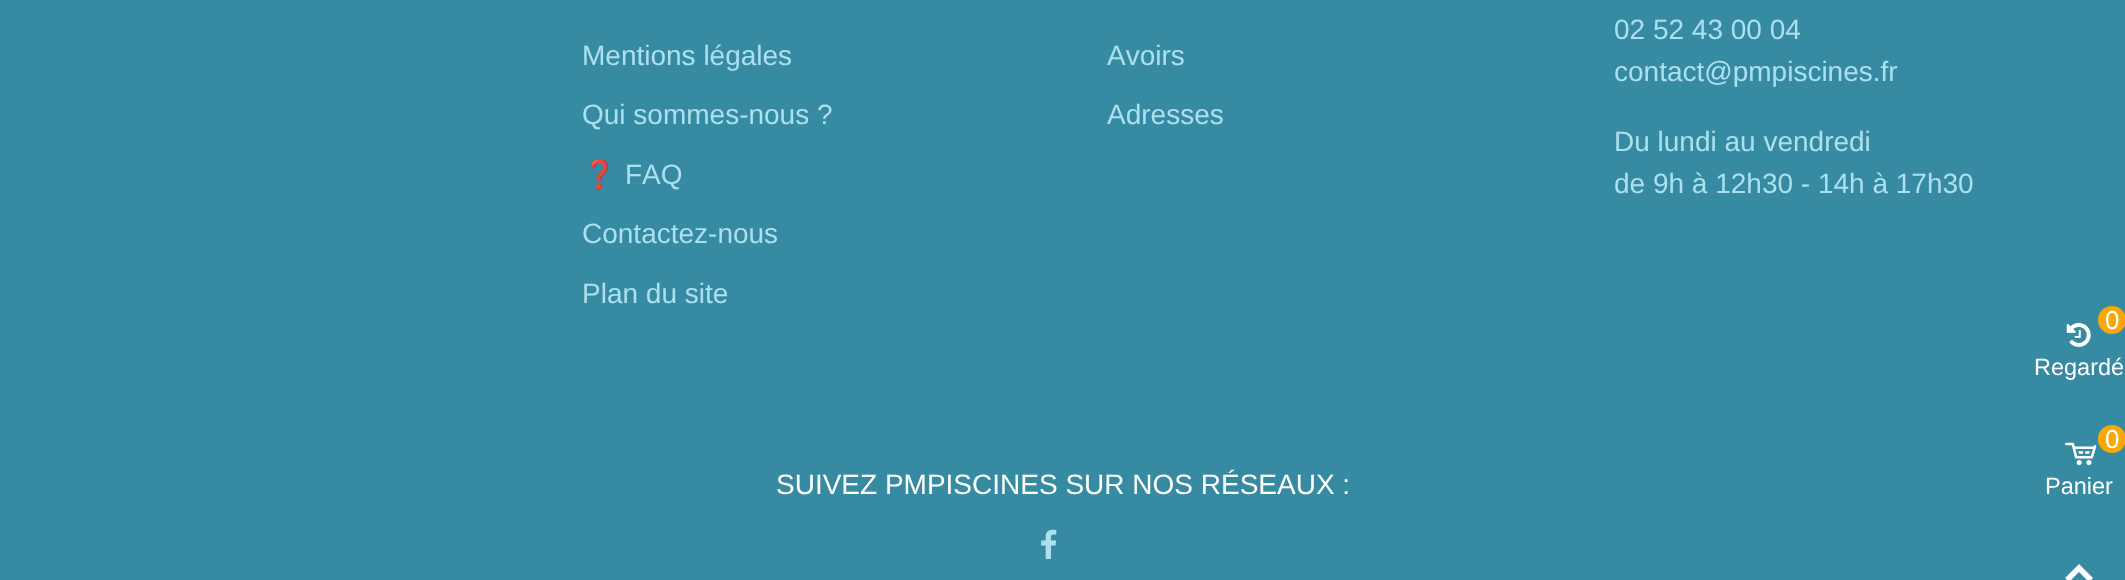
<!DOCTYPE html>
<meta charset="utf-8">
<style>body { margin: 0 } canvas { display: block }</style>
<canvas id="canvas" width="2125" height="580"></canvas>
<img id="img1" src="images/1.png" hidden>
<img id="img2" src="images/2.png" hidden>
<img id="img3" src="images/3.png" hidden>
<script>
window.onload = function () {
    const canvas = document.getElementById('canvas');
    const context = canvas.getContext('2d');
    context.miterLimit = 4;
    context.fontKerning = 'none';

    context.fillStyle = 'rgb(54, 138, 162)';
    context.fillRect(0, 0, 2125, 580);
    context.drawImage(document.getElementById('img1'), 1041, 529, 16, 30);
    context.drawImage(document.getElementById('img2'), 2066, 322, 25, 25);
    context.fillStyle = 'rgb(247, 168, 6)';
    context.beginPath();
    context.arc(2112, 320, 14, 0, 2 * Math.PI);
    context.fill();
    context.beginPath();
    context.arc(2112, 439, 14, 0, 2 * Math.PI);
    context.fill();
    context.drawImage(document.getElementById('img3'), 2065, 442, 32, 24);
    context.fillStyle = 'rgb(255, 255, 255)';
    context.beginPath();
    context.moveTo(2065, 578);
    context.lineTo(2079, 564);
    context.lineTo(2093, 578);
    context.lineTo(2089, 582);
    context.lineTo(2079, 572);
    context.lineTo(2069, 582);
    context.closePath();
    context.fill();
    context.font = '28px Liberation Sans';
    context.fillStyle = 'rgb(171, 224, 238)';
    context.fillText('Mentions légales', 582, 65);
    context.fillText('Qui sommes-nous ?', 582, 124);
    context.font = '28px Noto Color Emoji';
    context.fillText('❓', 582, 184);
    context.font = '28px Liberation Sans';
    context.fillText('FAQ', 625, 184);
    context.fillText('Contactez-nous', 582, 243);
    context.fillText('Plan du site', 582, 303);
    context.fillText('Avoirs', 1107, 65);
    context.fillText('Adresses', 1107, 124);
    context.fillText('02 52 43 00 04', 1614, 39);
    context.fillText('contact@pmpiscines.fr', 1614, 81);
    context.fillText('Du lundi au vendredi', 1614, 151);
    context.fillText('de 9h à 12h30 - 14h à 17h30', 1614, 193);
    context.fillStyle = 'rgb(255, 255, 255)';
    context.fillText('SUIVEZ PMPISCINES SUR NOS RÉSEAUX :', 776, 494);
    context.font = '26px Liberation Sans';
    context.fillText('0', 2105, 329);
    context.font = '23.5px Liberation Sans';
    context.fillText('Regardé', 2034, 375);
    context.font = '26px Liberation Sans';
    context.fillText('0', 2105, 448);
    context.font = '23.5px Liberation Sans';
    context.fillText('Panier', 2045, 494);
};
</script>
